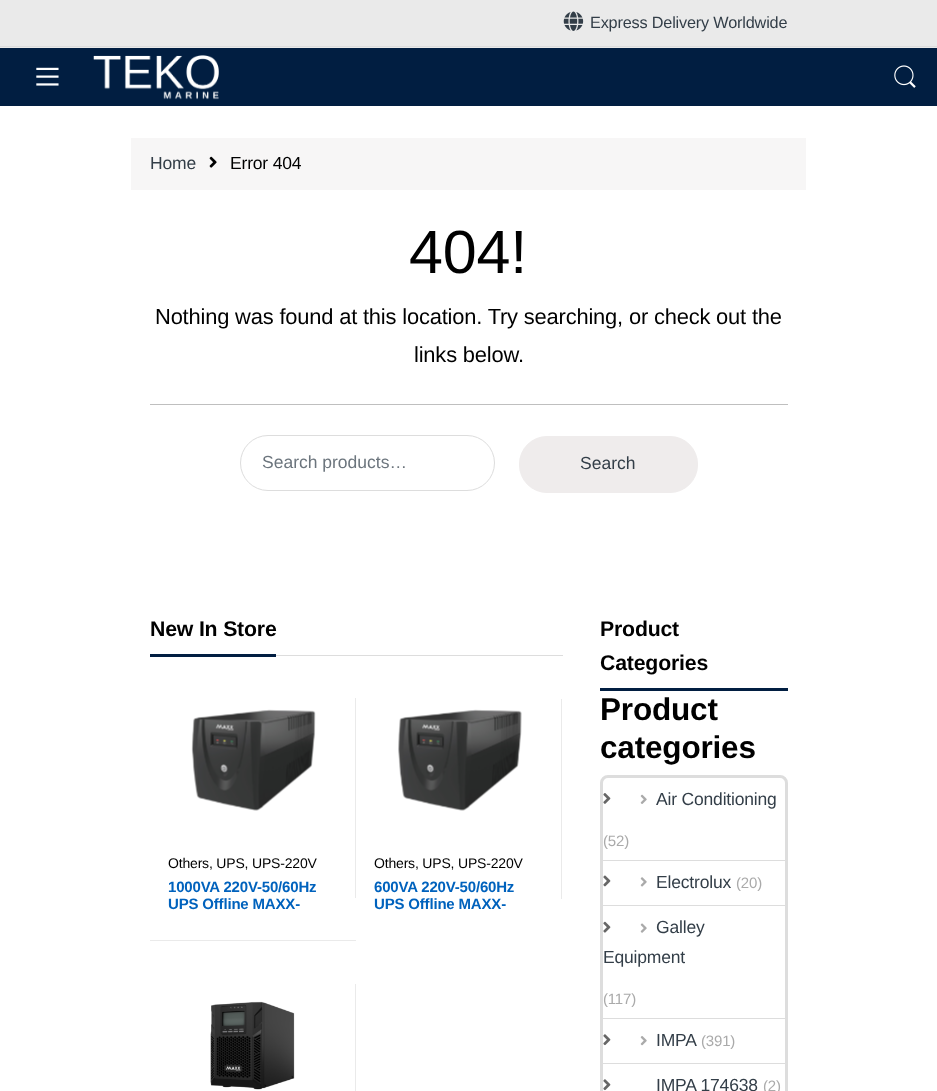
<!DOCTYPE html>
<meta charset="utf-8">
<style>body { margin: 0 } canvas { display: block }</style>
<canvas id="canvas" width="937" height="1091"></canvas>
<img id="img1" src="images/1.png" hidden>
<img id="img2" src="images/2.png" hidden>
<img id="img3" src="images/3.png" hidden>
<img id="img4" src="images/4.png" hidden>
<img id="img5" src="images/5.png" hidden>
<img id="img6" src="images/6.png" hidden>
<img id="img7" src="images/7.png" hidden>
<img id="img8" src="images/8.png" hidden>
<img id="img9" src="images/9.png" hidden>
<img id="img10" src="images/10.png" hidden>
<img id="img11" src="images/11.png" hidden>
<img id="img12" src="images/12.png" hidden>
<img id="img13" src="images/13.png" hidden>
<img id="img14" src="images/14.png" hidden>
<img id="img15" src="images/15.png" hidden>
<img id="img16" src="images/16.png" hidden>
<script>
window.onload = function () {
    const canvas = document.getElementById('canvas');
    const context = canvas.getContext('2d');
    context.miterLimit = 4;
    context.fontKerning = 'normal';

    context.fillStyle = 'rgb(255, 255, 255)';
    context.fillRect(0, 0, 937, 1091);
    context.fillStyle = 'rgb(234, 234, 234)';
    context.fillRect(0, 0, 937, 48);
    context.fillStyle = 'rgb(221, 221, 221)';
    context.fillRect(0, 46, 937, 1);
    context.drawImage(document.getElementById('img1'), 563, 11, 21, 20);
    context.fillStyle = 'rgb(1, 30, 65)';
    context.fillRect(0, 48, 937, 58);
    context.drawImage(document.getElementById('img2'), 36, 67, 23, 19);
    context.drawImage(document.getElementById('img3'), 93, 55, 126, 45);
    context.drawImage(document.getElementById('img4'), 894, 65, 22, 23);
    context.fillStyle = 'rgb(247, 246, 246)';
    context.fillRect(131, 138, 675, 52);
    context.drawImage(document.getElementById('img5'), 209, 156, 8, 12);
    context.fillStyle = 'rgb(191, 191, 191)';
    context.fillRect(150, 404, 638, 1);
    context.beginPath();
    context.roundRect(240.5, 435.5, 254, 55, 27.5);
    context.strokeStyle = 'rgb(221, 221, 221)';
    context.stroke();
    context.fillStyle = 'rgb(239, 236, 236)';
    context.beginPath();
    context.roundRect(519.5, 436.5, 178, 56, 27.5);
    context.fill();
    context.strokeStyle = 'rgb(239, 236, 236)';
    context.stroke();
    context.fillStyle = 'rgb(221, 221, 221)';
    context.fillRect(276, 655, 287, 1);
    context.fillStyle = 'rgb(1, 30, 65)';
    context.fillRect(150, 654, 126, 3);
    context.fillStyle = 'rgb(234, 234, 234)';
    context.fillRect(150, 940, 206, 1);
    context.drawImage(document.getElementById('img6'), 191, 709, 125, 102);
    context.fillRect(355, 698, 1, 200);
    context.drawImage(document.getElementById('img7'), 398, 709, 124, 102);
    context.fillRect(561, 699, 1, 200);
    context.drawImage(document.getElementById('img8'), 210, 1001, 85, 89);
    context.fillRect(355, 984, 1, 107);
    context.fillStyle = 'rgb(1, 30, 65)';
    context.fillRect(600, 688, 188, 3);
    context.beginPath();
    context.roundRect(601.5, 776.5, 185, 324, 6.5);
    context.strokeStyle = 'rgb(221, 221, 221)';
    context.lineWidth = 3;
    context.stroke();
    context.drawImage(document.getElementById('img9'), 603, 793, 8, 11);
    context.drawImage(document.getElementById('img10'), 640, 794, 7, 10);
    context.fillStyle = 'rgb(221, 221, 221)';
    context.fillRect(603, 860, 182, 1);
    context.drawImage(document.getElementById('img11'), 603, 875, 8, 12);
    context.drawImage(document.getElementById('img12'), 640, 877, 7, 10);
    context.fillRect(603, 905, 182, 1);
    context.drawImage(document.getElementById('img13'), 603, 921, 8, 12);
    context.drawImage(document.getElementById('img14'), 640, 923, 7, 10);
    context.fillRect(603, 1018, 182, 1);
    context.drawImage(document.getElementById('img15'), 603, 1034, 8, 12);
    context.drawImage(document.getElementById('img16'), 640, 1036, 7, 10);
    context.fillRect(603, 1063, 182, 1);
    context.drawImage(document.getElementById('img15'), 603, 1079, 8, 12);
    context.letterSpacing = '-0.18px';
    context.font = '16.25px Liberation Sans';
    context.fillStyle = 'rgb(51, 62, 72)';
    context.fillText('Express Delivery Worldwide', 590, 28);
    context.font = '17.5px Liberation Sans';
    context.fillText('Home', 150, 169);
    context.fillStyle = 'rgb(0, 0, 0)';
    context.fillText('Error 404', 230, 169);
    context.font = '61px Liberation Sans';
    context.fillText('404!', 409, 273);
    context.font = '21.9px Liberation Sans';
    context.fillText('Nothing was found at this location. Try searching, or check out the', 155, 324);
    context.fillText('links below.', 414, 362);
    context.letterSpacing = '0px';
    context.font = '17.5px Liberation Sans';
    context.fillStyle = 'rgb(108, 117, 125)';
    context.fillText('Search products…', 262, 468);
    context.fillStyle = 'rgb(51, 62, 72)';
    context.fillText('Search', 580, 469);
    context.letterSpacing = '-0.18px';
    context.font = 'bold 21.25px Liberation Sans';
    context.fillStyle = 'rgb(0, 0, 0)';
    context.fillText('New In Store', 150, 636);
    context.font = '14px Liberation Sans';
    context.fillText('Others, UPS, UPS-220V', 168, 868);
    context.font = 'bold 15px Liberation Sans';
    context.fillStyle = 'rgb(0, 98, 189)';
    context.fillText('1000VA 220V-50/60Hz', 168, 892);
    context.fillText('UPS Offline MAXX-', 168, 909);
    context.font = '14px Liberation Sans';
    context.fillStyle = 'rgb(0, 0, 0)';
    context.fillText('Others, UPS, UPS-220V', 374, 868);
    context.font = 'bold 15px Liberation Sans';
    context.fillStyle = 'rgb(0, 98, 189)';
    context.fillText('600VA 220V-50/60Hz', 374, 892);
    context.fillText('UPS Offline MAXX-', 374, 909);
    context.font = 'bold 21.25px Liberation Sans';
    context.fillStyle = 'rgb(0, 0, 0)';
    context.fillText('Product', 600, 636);
    context.fillText('Categories', 600, 670);
    context.font = 'bold 31.5px Liberation Sans';
    context.fillText('Product', 600, 720);
    context.fillText('categories', 600, 758);
    context.font = '17.5px Liberation Sans';
    context.fillStyle = 'rgb(51, 62, 72)';
    context.fillText('Air Conditioning', 656, 805);
    context.font = '15px Liberation Sans';
    context.fillStyle = 'rgb(170, 170, 170)';
    context.fillText('(52)', 603, 846);
    context.font = '17.5px Liberation Sans';
    context.fillStyle = 'rgb(51, 62, 72)';
    context.fillText('Electrolux', 656, 888);
    context.font = '15px Liberation Sans';
    context.fillStyle = 'rgb(170, 170, 170)';
    context.fillText('(20)', 736, 888);
    context.font = '17.5px Liberation Sans';
    context.fillStyle = 'rgb(51, 62, 72)';
    context.fillText('Galley', 656, 933);
    context.fillText('Equipment', 603, 963);
    context.font = '15px Liberation Sans';
    context.fillStyle = 'rgb(170, 170, 170)';
    context.fillText('(117)', 603, 1004);
    context.font = '17.5px Liberation Sans';
    context.fillStyle = 'rgb(51, 62, 72)';
    context.fillText('IMPA', 656, 1046);
    context.font = '15px Liberation Sans';
    context.fillStyle = 'rgb(170, 170, 170)';
    context.fillText('(391)', 701, 1046);
    context.font = '17.5px Liberation Sans';
    context.fillStyle = 'rgb(51, 62, 72)';
    context.fillText('IMPA 174638', 656, 1091);
    context.font = '15px Liberation Sans';
    context.fillStyle = 'rgb(170, 170, 170)';
    context.fillText('(2)', 763, 1091);
};
</script>
